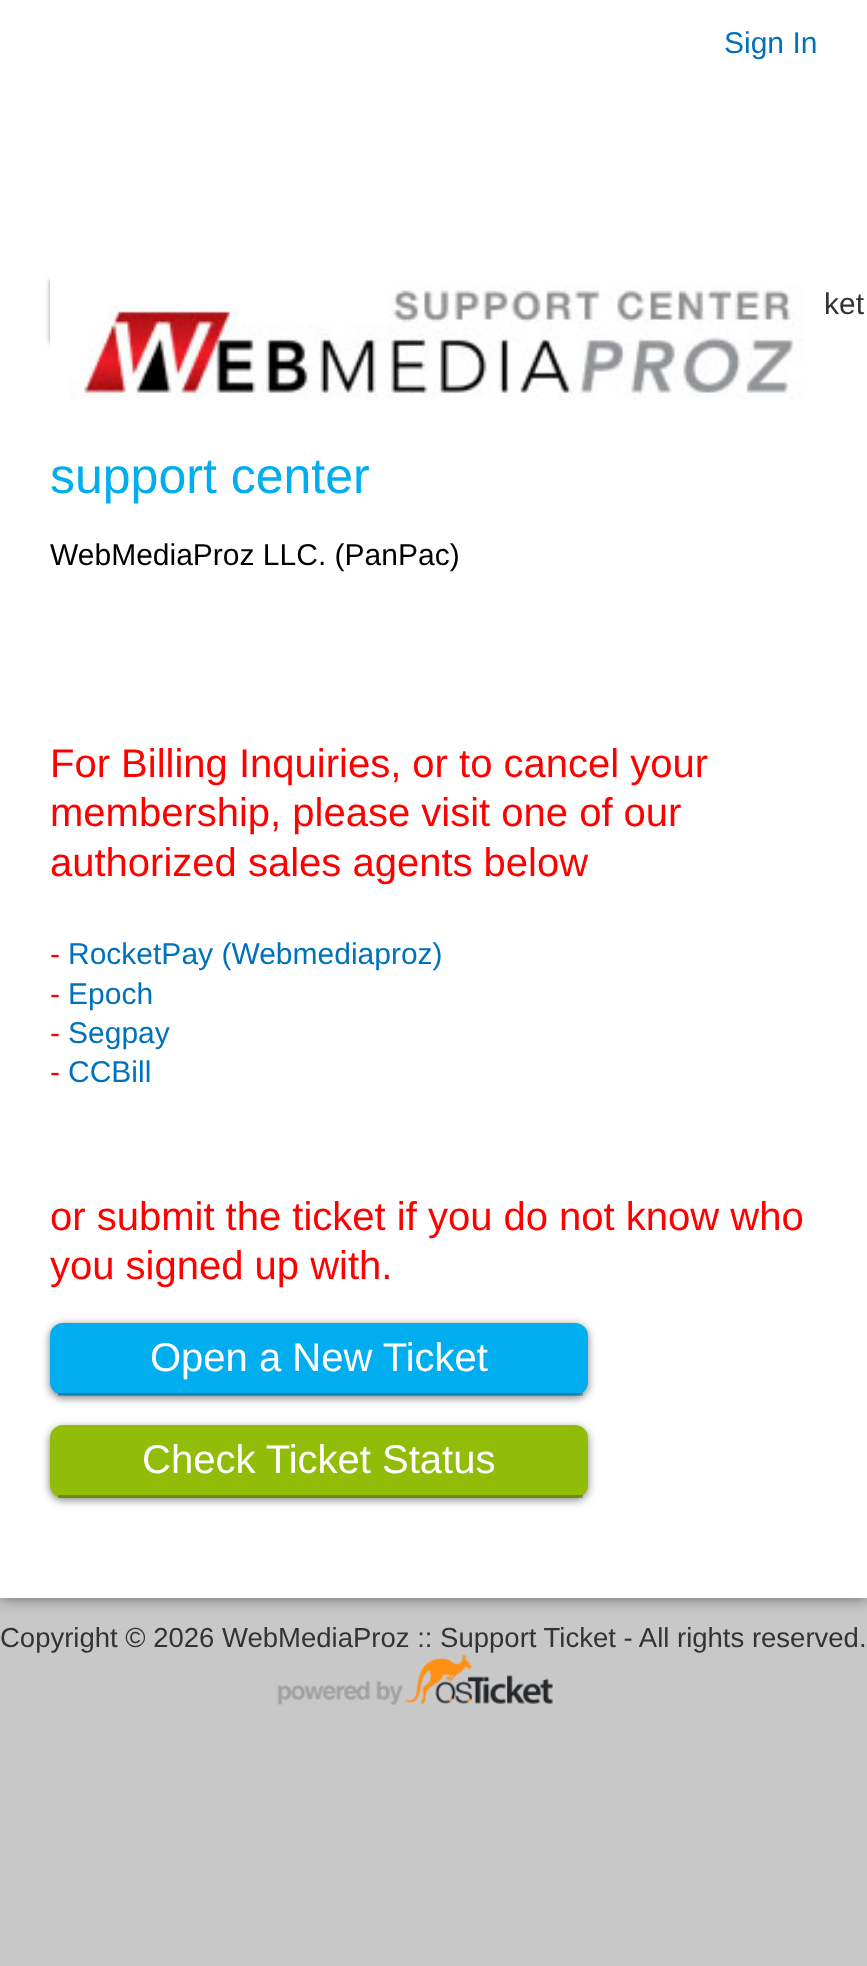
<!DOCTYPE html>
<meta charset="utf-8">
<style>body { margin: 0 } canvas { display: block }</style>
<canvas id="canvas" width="867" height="1966"></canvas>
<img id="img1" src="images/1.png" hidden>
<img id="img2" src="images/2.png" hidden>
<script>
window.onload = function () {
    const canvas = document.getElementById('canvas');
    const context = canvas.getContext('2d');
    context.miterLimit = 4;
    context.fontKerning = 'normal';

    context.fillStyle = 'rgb(200, 200, 200)';
    context.fillRect(0, 0, 867, 1966);
    context.fillStyle = 'rgba(0, 0, 0, 0.5)';
    context.filter = 'blur(7.5px)';
    context.beginPath();
    context.rect(0, 0, 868, 1598);
    context.fill();
    context.filter = 'none';
    context.fillStyle = 'rgb(255, 255, 255)';
    context.fillRect(0, 0, 867, 1598);
    context.fillStyle = 'rgba(0, 0, 0, 0.4)';
    context.filter = 'blur(2.5px)';
    context.beginPath();
    context.rect(50, 280, 768, 63);
    context.fill();
    context.filter = 'none';
    context.drawImage(document.getElementById('img1'), 50, 273, 773, 157);
    context.fillStyle = 'rgba(0, 0, 0, 0.5)';
    context.filter = 'blur(4px)';
    context.beginPath();
    context.roundRect(50, 1325, 538, 73, 13);
    context.fill();
    context.filter = 'none';
    context.fillStyle = 'rgb(0, 174, 239)';
    context.beginPath();
    context.roundRect(50, 1323, 538, 72, 13);
    context.fill();
    context.fillStyle = 'rgba(0, 0, 0, 0.25)';
    context.fillRect(58, 1393, 525, 3);
    context.fillStyle = 'rgba(0, 0, 0, 0.5)';
    context.filter = 'blur(4px)';
    context.beginPath();
    context.roundRect(50, 1428, 538, 72, 13);
    context.fill();
    context.filter = 'none';
    context.fillStyle = 'rgb(145, 189, 9)';
    context.beginPath();
    context.roundRect(50, 1425, 538, 73, 13);
    context.fill();
    context.fillStyle = 'rgba(0, 0, 0, 0.25)';
    context.fillRect(58, 1495, 525, 3);
    context.drawImage(document.getElementById('img2'), 277, 1655, 276, 50);
    context.font = '30px Liberation Sans';
    context.fillStyle = 'rgb(0, 114, 188)';
    context.fillText('Sign In', 724, 53);
    context.fillStyle = 'rgb(51, 51, 51)';
    context.fillText('ket', 824, 314);
    context.font = '50px Liberation Sans';
    context.fillStyle = 'rgb(0, 174, 239)';
    context.fillText('support center', 50, 493);
    context.font = '30px Liberation Sans';
    context.fillStyle = 'rgb(0, 0, 0)';
    context.fillText('WebMediaProz LLC. (PanPac)', 50, 565);
    context.font = '40px Liberation Sans';
    context.fillStyle = 'rgb(255, 0, 0)';
    context.fillText('For Billing Inquiries, or to cancel your', 50, 777);
    context.fillText('membership, please visit one of our', 50, 826);
    context.fillText('authorized sales agents below', 50, 876);
    context.font = '30px Liberation Sans';
    context.fillText('-', 50, 964);
    context.fillStyle = 'rgb(0, 114, 188)';
    context.fillText('RocketPay (Webmediaproz)', 68, 964);
    context.fillStyle = 'rgb(255, 0, 0)';
    context.fillText('-', 50, 1004);
    context.fillStyle = 'rgb(0, 114, 188)';
    context.fillText('Epoch', 68, 1004);
    context.fillStyle = 'rgb(255, 0, 0)';
    context.fillText('-', 50, 1043);
    context.fillStyle = 'rgb(0, 114, 188)';
    context.fillText('Segpay', 68, 1043);
    context.fillStyle = 'rgb(255, 0, 0)';
    context.fillText('-', 50, 1082);
    context.fillStyle = 'rgb(0, 114, 188)';
    context.fillText('CCBill', 68, 1082);
    context.font = '40px Liberation Sans';
    context.fillStyle = 'rgb(255, 0, 0)';
    context.fillText('or submit the ticket if you do not know who', 50, 1230);
    context.fillText('you signed up with.', 50, 1279);
    context.fillStyle = 'rgb(255, 255, 255)';
    context.fillText('Open a New Ticket', 150, 1371);
    context.fillText('Check Ticket Status', 142, 1473);
    context.font = '27.5px Liberation Sans';
    context.fillStyle = 'rgb(51, 51, 51)';
    context.fillText('Copyright © 2026 WebMediaProz :: Support Ticket - All rights reserved.', 0, 1647);
};
</script>
